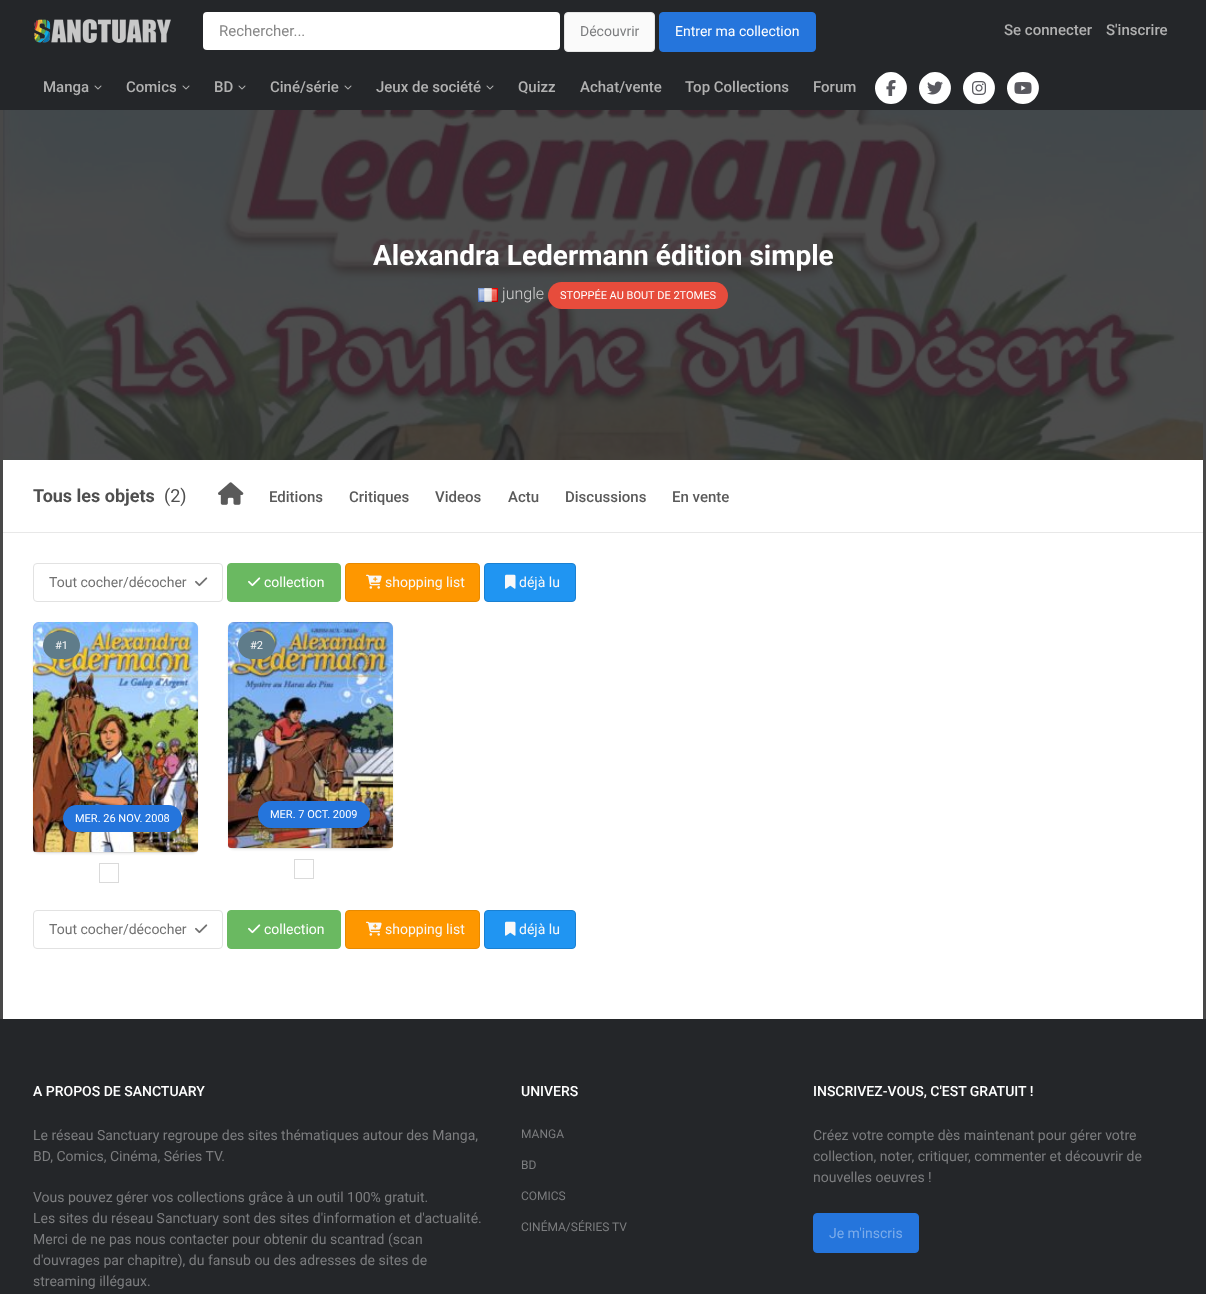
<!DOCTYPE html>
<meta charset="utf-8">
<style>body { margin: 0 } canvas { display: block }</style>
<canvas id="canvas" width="1206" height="1294"></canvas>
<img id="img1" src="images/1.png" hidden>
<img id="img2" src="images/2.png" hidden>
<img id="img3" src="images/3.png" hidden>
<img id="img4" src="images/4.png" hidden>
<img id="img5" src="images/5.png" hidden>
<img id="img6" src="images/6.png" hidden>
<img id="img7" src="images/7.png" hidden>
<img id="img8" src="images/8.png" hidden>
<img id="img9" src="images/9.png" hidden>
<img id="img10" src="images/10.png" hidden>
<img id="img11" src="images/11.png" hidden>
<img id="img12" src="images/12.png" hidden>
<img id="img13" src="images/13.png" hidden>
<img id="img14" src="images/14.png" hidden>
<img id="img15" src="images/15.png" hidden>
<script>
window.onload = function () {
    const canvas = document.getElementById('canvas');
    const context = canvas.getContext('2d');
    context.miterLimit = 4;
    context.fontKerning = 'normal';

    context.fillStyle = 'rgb(72, 72, 72)';
    context.fillRect(0, 0, 1206, 1294);
    context.fillStyle = 'rgb(36, 38, 41)';
    context.fillRect(0, 0, 1206, 110);
    context.drawImage(document.getElementById('img1'), 34, 19, 137, 24);
    context.fillStyle = 'rgb(255, 255, 255)';
    context.beginPath();
    context.roundRect(203, 12, 357, 38, 4);
    context.fill();
    context.fillStyle = 'rgb(250, 250, 250)';
    context.beginPath();
    context.roundRect(564.5, 12.5, 90, 39, 3.5);
    context.fill();
    context.strokeStyle = 'rgb(230, 230, 230)';
    context.stroke();
    context.fillStyle = 'rgb(37, 117, 220)';
    context.beginPath();
    context.roundRect(659.5, 12.5, 156, 39, 3.5);
    context.fill();
    context.strokeStyle = 'rgb(37, 117, 220)';
    context.stroke();
    context.drawImage(document.getElementById('img2'), 94, 85, 8, 5);
    context.drawImage(document.getElementById('img2'), 182, 85, 8, 5);
    context.drawImage(document.getElementById('img2'), 238, 85, 8, 5);
    context.drawImage(document.getElementById('img2'), 344, 85, 8, 5);
    context.drawImage(document.getElementById('img2'), 486, 85, 8, 5);
    context.fillStyle = 'rgb(255, 255, 255)';
    context.beginPath();
    context.moveTo(891, 104);
    context.bezierCurveTo(906, 104, 913, 84.5, 900.5, 75.5);
    context.bezierCurveTo(898, 73, 894.5, 72, 891, 72);
    context.bezierCurveTo(887.5, 72, 884, 73, 881.5, 75.5);
    context.bezierCurveTo(869, 84.5, 876, 104, 891, 104);
    context.closePath();
    context.fill();
    context.drawImage(document.getElementById('img3'), 886, 80, 10, 16);
    context.beginPath();
    context.moveTo(935, 104);
    context.bezierCurveTo(950, 104, 957, 84.5, 944.5, 75.5);
    context.bezierCurveTo(942, 73, 938.5, 72, 935, 72);
    context.bezierCurveTo(931.5, 72, 928, 73, 925.5, 75.5);
    context.bezierCurveTo(913, 84.5, 920, 104, 935, 104);
    context.closePath();
    context.fill();
    context.drawImage(document.getElementById('img4'), 927, 81, 16, 14);
    context.beginPath();
    context.moveTo(979, 104);
    context.bezierCurveTo(994, 104, 1001, 84.5, 988.5, 75.5);
    context.bezierCurveTo(986, 73, 982.5, 72, 979, 72);
    context.bezierCurveTo(975.5, 72, 972, 73, 969.5, 75.5);
    context.bezierCurveTo(957, 84.5, 964, 104, 979, 104);
    context.closePath();
    context.fill();
    context.drawImage(document.getElementById('img5'), 972, 81, 14, 14);
    context.beginPath();
    context.moveTo(1023, 104);
    context.bezierCurveTo(1038, 104, 1045, 84.5, 1032.5, 75.5);
    context.bezierCurveTo(1030, 73, 1026.5, 72, 1023, 72);
    context.bezierCurveTo(1019.5, 72, 1016, 73, 1013.5, 75.5);
    context.bezierCurveTo(1001, 84.5, 1008, 104, 1023, 104);
    context.closePath();
    context.fill();
    context.drawImage(document.getElementById('img6'), 1014, 82, 18, 12);
    context.fillRect(3, 460, 1200, 559);
    context.drawImage(document.getElementById('img7'), 3, 110, 1200, 350);
    context.drawImage(document.getElementById('img8'), 478, 288, 20, 14);
    context.fillStyle = 'rgb(231, 76, 60)';
    context.beginPath();
    context.roundRect(548, 282, 180, 27, 13.5);
    context.fill();
    context.fillStyle = 'rgb(232, 232, 232)';
    context.fillRect(3, 532, 1200, 1);
    context.drawImage(document.getElementById('img9'), 218, 482, 26, 23);
    context.beginPath();
    context.roundRect(33.5, 563.5, 189, 38, 3.5);
    context.strokeStyle = 'rgb(226, 226, 226)';
    context.stroke();
    context.drawImage(document.getElementById('img10'), 195, 577, 13, 10);
    context.fillStyle = 'rgb(106, 185, 97)';
    context.beginPath();
    context.roundRect(227.5, 563.5, 113, 38, 3.5);
    context.fill();
    context.strokeStyle = 'rgb(106, 185, 97)';
    context.stroke();
    context.drawImage(document.getElementById('img11'), 248, 577, 13, 10);
    context.fillStyle = 'rgb(254, 151, 0)';
    context.beginPath();
    context.roundRect(345.5, 563.5, 134, 38, 3.5);
    context.fill();
    context.strokeStyle = 'rgb(231, 138, 1)';
    context.stroke();
    context.drawImage(document.getElementById('img12'), 366, 574, 16, 15);
    context.fillStyle = 'rgb(32, 149, 242)';
    context.beginPath();
    context.roundRect(484.5, 563.5, 91, 38, 3.5);
    context.fill();
    context.strokeStyle = 'rgb(26, 128, 209)';
    context.stroke();
    context.drawImage(document.getElementById('img13'), 505, 574, 11, 15);
    context.fillStyle = 'rgba(0, 0, 0, 0.07)';
    context.filter = 'blur(1px)';
    context.beginPath();
    context.roundRect(33, 623, 165, 231, 6);
    context.fill();
    context.filter = 'none';
    context.beginPath();
    context.roundRect(33.5, 622.5, 164, 230, 5.5);
    context.strokeStyle = 'rgb(222, 222, 222)';
    context.stroke();
    context.drawImage(document.getElementById('img14'), 33, 622, 165, 230);
    context.fillStyle = 'rgb(95, 124, 138)';
    context.beginPath();
    context.roundRect(43, 632, 37, 27, 13.5);
    context.fill();
    context.fillStyle = 'rgb(37, 117, 220)';
    context.beginPath();
    context.roundRect(63, 805, 119, 27, 13.5);
    context.fill();
    context.strokeStyle = 'rgb(218, 218, 218)';
    context.strokeRect(99.5, 863.5, 19, 19);
    context.fillStyle = 'rgba(0, 0, 0, 0.07)';
    context.filter = 'blur(1px)';
    context.beginPath();
    context.roundRect(228, 623, 165, 227, 6);
    context.fill();
    context.filter = 'none';
    context.beginPath();
    context.roundRect(228.5, 622.5, 164, 226, 5.5);
    context.strokeStyle = 'rgb(222, 222, 222)';
    context.stroke();
    context.drawImage(document.getElementById('img15'), 228, 622, 165, 226);
    context.fillStyle = 'rgb(95, 124, 138)';
    context.beginPath();
    context.roundRect(238, 632, 37, 27, 13.5);
    context.fill();
    context.fillStyle = 'rgb(37, 117, 220)';
    context.beginPath();
    context.roundRect(258, 801, 112, 27, 13.5);
    context.fill();
    context.strokeStyle = 'rgb(218, 218, 218)';
    context.strokeRect(294.5, 859.5, 19, 19);
    context.beginPath();
    context.roundRect(33.5, 910.5, 189, 38, 3.5);
    context.strokeStyle = 'rgb(226, 226, 226)';
    context.stroke();
    context.drawImage(document.getElementById('img10'), 195, 924, 13, 10);
    context.fillStyle = 'rgb(106, 185, 97)';
    context.beginPath();
    context.roundRect(227.5, 910.5, 113, 38, 3.5);
    context.fill();
    context.strokeStyle = 'rgb(106, 185, 97)';
    context.stroke();
    context.drawImage(document.getElementById('img11'), 248, 924, 13, 10);
    context.fillStyle = 'rgb(254, 151, 0)';
    context.beginPath();
    context.roundRect(345.5, 910.5, 134, 38, 3.5);
    context.fill();
    context.strokeStyle = 'rgb(231, 138, 1)';
    context.stroke();
    context.drawImage(document.getElementById('img12'), 366, 921, 16, 15);
    context.fillStyle = 'rgb(32, 149, 242)';
    context.beginPath();
    context.roundRect(484.5, 910.5, 91, 38, 3.5);
    context.fill();
    context.strokeStyle = 'rgb(26, 128, 209)';
    context.stroke();
    context.drawImage(document.getElementById('img13'), 505, 921, 11, 15);
    context.fillStyle = 'rgb(36, 38, 41)';
    context.fillRect(0, 1019, 1206, 275);
    context.fillStyle = 'rgb(37, 117, 220)';
    context.beginPath();
    context.roundRect(813.5, 1213.5, 105, 39, 3.5);
    context.fill();
    context.strokeStyle = 'rgb(37, 117, 220)';
    context.stroke();
    context.font = '15px Roboto';
    context.fillStyle = 'rgb(135, 135, 135)';
    context.fillText('Rechercher...', 219, 36);
    context.font = '14px Roboto';
    context.fillStyle = 'rgb(124, 125, 127)';
    context.fillText('Découvrir', 580, 36);
    context.fillStyle = 'rgb(255, 255, 255)';
    context.fillText('Entrer ma collection', 675, 36);
    context.font = '500 15px Roboto';
    context.fillStyle = 'rgb(177, 177, 177)';
    context.fillText('Se connecter', 1004, 35);
    context.fillText('S\'inscrire', 1106, 35);
    context.fillText('Manga', 43, 92);
    context.fillText('Comics', 126, 92);
    context.fillText('BD', 214, 92);
    context.fillText('Ciné/série', 270, 92);
    context.fillText('Jeux de société', 376, 92);
    context.fillText('Quizz', 518, 92);
    context.fillText('Achat/vente', 580, 92);
    context.fillText('Top Collections', 685, 92);
    context.fillText('Forum', 813, 92);
    context.font = 'bold 28px Roboto';
    context.fillStyle = 'rgb(255, 255, 255)';
    context.fillText('Alexandra Ledermann édition simple', 373, 265);
    context.font = '300 16px Roboto';
    context.fillStyle = 'rgb(211, 211, 211)';
    context.fillText('jungle', 502, 299);
    context.font = '11px Roboto';
    context.fillStyle = 'rgb(255, 255, 255)';
    context.fillText('STOPPÉE AU BOUT DE 2TOMES', 560, 299);
    context.font = 'bold 18px Roboto';
    context.fillStyle = 'rgb(79, 79, 79)';
    context.fillText('Tous les objets', 33, 502);
    context.font = '18px Roboto';
    context.fillText('(2)', 164, 502);
    context.font = '500 15px Roboto';
    context.fillStyle = 'rgb(90, 90, 90)';
    context.fillText('Editions', 269, 502);
    context.fillText('Critiques', 349, 502);
    context.fillText('Videos', 435, 502);
    context.fillText('Actu', 508, 502);
    context.fillText('Discussions', 565, 502);
    context.fillText('En vente', 672, 502);
    context.font = '14px Roboto';
    context.fillStyle = 'rgb(113, 113, 113)';
    context.fillText('Tout cocher/décocher', 49, 587);
    context.fillStyle = 'rgb(255, 255, 255)';
    context.fillText('collection', 264, 587);
    context.fillStyle = 'rgb(248, 248, 248)';
    context.fillText('shopping list', 385, 587);
    context.fillText('déjà lu', 519, 587);
    context.font = '11px Roboto';
    context.fillText('#1', 55, 649);
    context.fillStyle = 'rgb(255, 255, 255)';
    context.fillText('MER. 26 NOV. 2008', 75, 822);
    context.fillStyle = 'rgb(248, 248, 248)';
    context.fillText('#2', 250, 649);
    context.fillStyle = 'rgb(255, 255, 255)';
    context.fillText('MER. 7 OCT. 2009', 270, 818);
    context.font = '14px Roboto';
    context.fillStyle = 'rgb(113, 113, 113)';
    context.fillText('Tout cocher/décocher', 49, 934);
    context.fillStyle = 'rgb(255, 255, 255)';
    context.fillText('collection', 264, 934);
    context.fillStyle = 'rgb(248, 248, 248)';
    context.fillText('shopping list', 385, 934);
    context.fillText('déjà lu', 519, 934);
    context.font = '500 14px Roboto';
    context.fillStyle = 'rgb(255, 255, 255)';
    context.fillText('A PROPOS DE SANCTUARY', 33, 1096);
    context.font = '14px Roboto';
    context.fillStyle = 'rgb(124, 125, 127)';
    context.fillText('Le réseau Sanctuary regroupe des sites thématiques autour des Manga,', 33, 1140);
    context.fillText('BD, Comics, Cinéma, Séries TV.', 33, 1161);
    context.fillText('Vous pouvez gérer vos collections grâce à un outil 100% gratuit.', 33, 1202);
    context.fillText('Les sites du réseau Sanctuary sont des sites d\'information et d\'actualité.', 33, 1223);
    context.fillText('Merci de ne pas nous contacter pour obtenir du scantrad (scan', 33, 1244);
    context.fillText('d\'ouvrages par chapitre), du fansub ou des adresses de sites de', 33, 1265);
    context.fillText('streaming illégaux.', 33, 1286);
    context.font = '500 14px Roboto';
    context.fillStyle = 'rgb(255, 255, 255)';
    context.fillText('UNIVERS', 521, 1096);
    context.font = '12px Roboto';
    context.fillStyle = 'rgb(124, 125, 127)';
    context.fillText('MANGA', 521, 1138);
    context.fillText('BD', 521, 1169);
    context.fillText('COMICS', 521, 1200);
    context.fillText('CINÉMA/SÉRIES TV', 521, 1231);
    context.font = '500 14px Roboto';
    context.fillStyle = 'rgb(255, 255, 255)';
    context.fillText('INSCRIVEZ-VOUS, C\'EST GRATUIT !', 813, 1096);
    context.font = '14px Roboto';
    context.fillStyle = 'rgb(124, 125, 127)';
    context.fillText('Créez votre compte dès maintenant pour gérer votre', 813, 1140);
    context.fillText('collection, noter, critiquer, commenter et découvrir de', 813, 1161);
    context.fillText('nouvelles oeuvres !', 813, 1182);
    context.fillStyle = 'rgb(124, 172, 234)';
    context.fillText('Je m\'inscris', 829, 1238);
};
</script>
